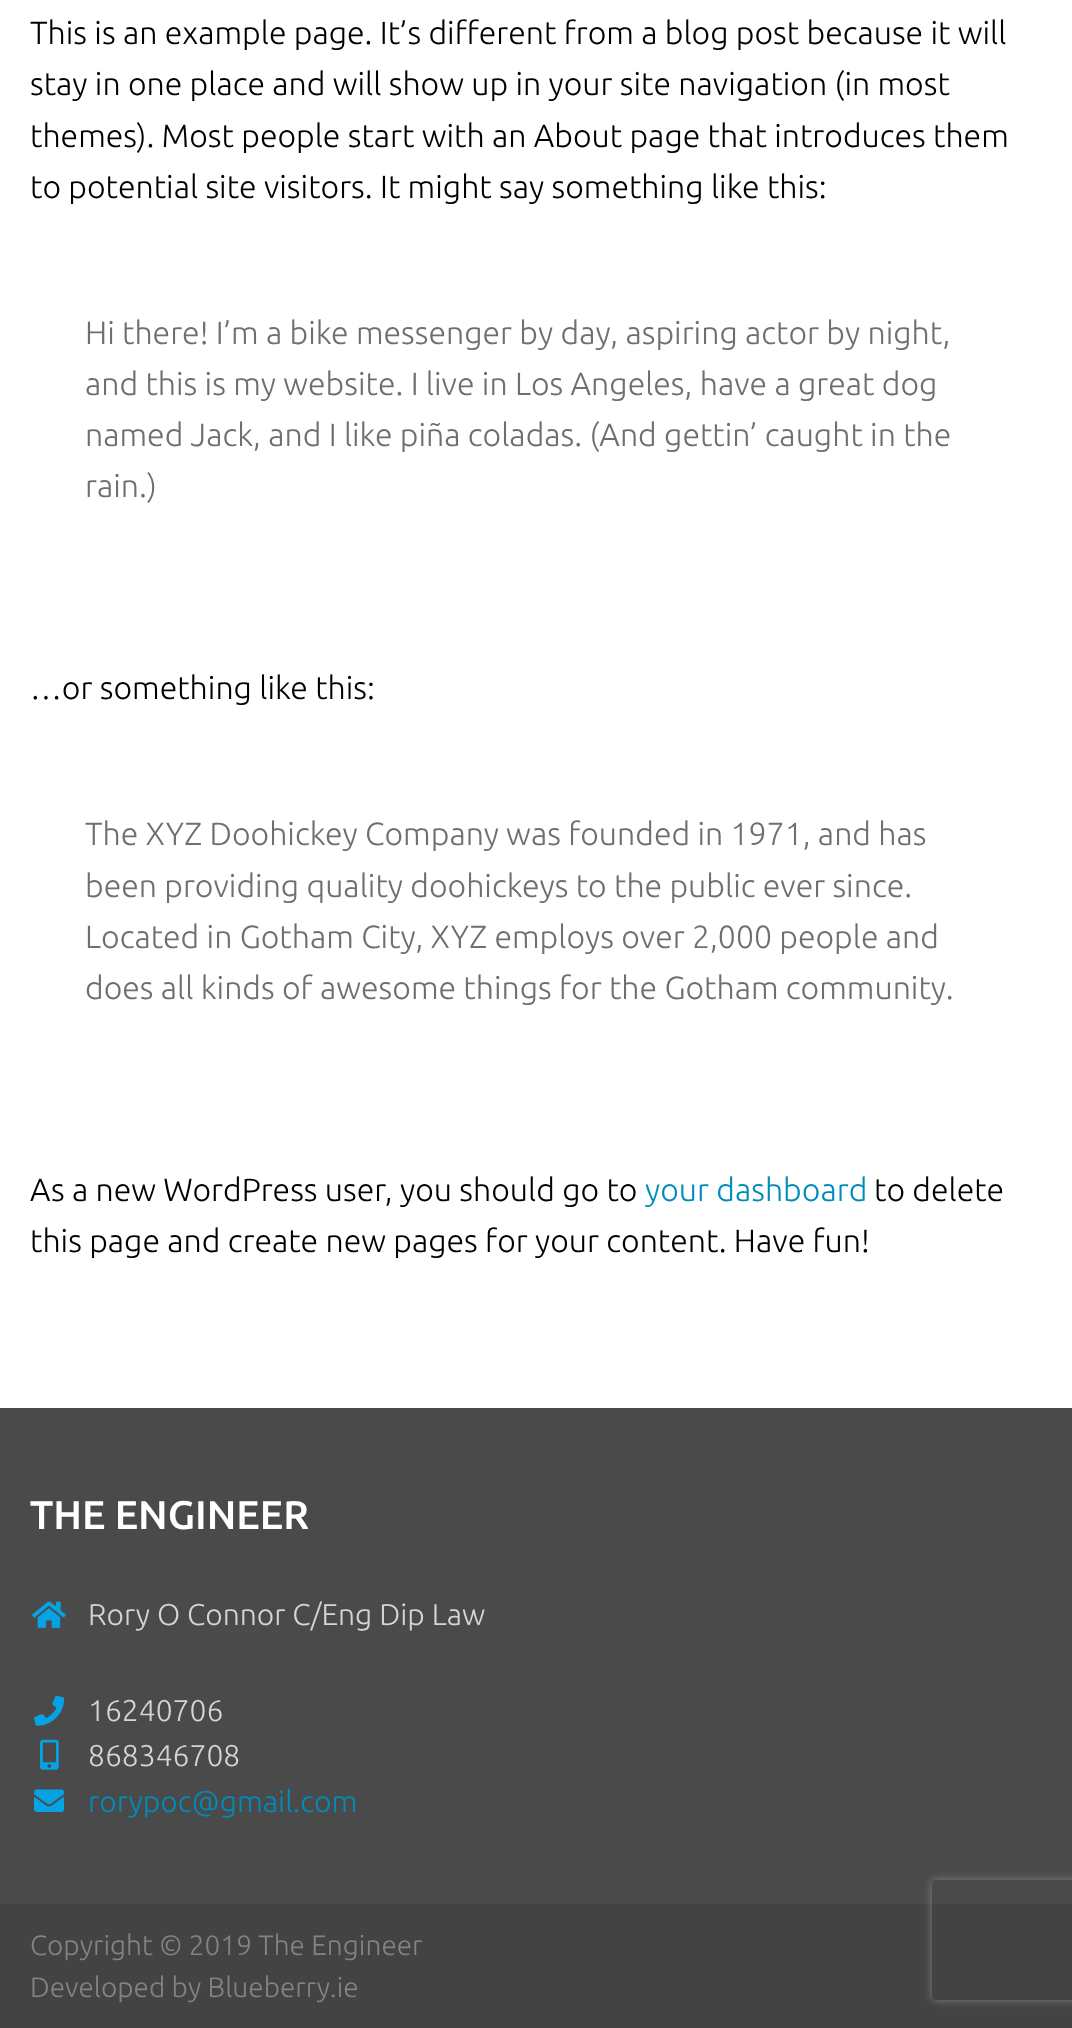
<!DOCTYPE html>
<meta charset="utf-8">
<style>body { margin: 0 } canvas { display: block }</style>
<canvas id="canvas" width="1072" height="2028"></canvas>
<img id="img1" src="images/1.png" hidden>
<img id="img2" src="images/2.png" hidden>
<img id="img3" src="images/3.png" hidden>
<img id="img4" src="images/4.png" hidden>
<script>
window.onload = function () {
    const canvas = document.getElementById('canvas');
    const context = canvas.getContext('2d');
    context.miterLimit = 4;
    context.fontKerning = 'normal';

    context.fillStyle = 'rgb(255, 255, 255)';
    context.fillRect(0, 0, 1072, 2028);
    context.fillStyle = 'rgb(74, 74, 74)';
    context.fillRect(0, 1408, 1072, 496);
    context.drawImage(document.getElementById('img1'), 32, 1601, 34, 27);
    context.drawImage(document.getElementById('img2'), 34, 1695, 31, 31);
    context.drawImage(document.getElementById('img3'), 40, 1739, 19, 31);
    context.drawImage(document.getElementById('img4'), 34, 1789, 30, 23);
    context.fillStyle = 'rgb(67, 67, 67)';
    context.fillRect(0, 1904, 1072, 124);
    context.save();
    context.beginPath();
    context.moveTo(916, 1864);
    context.lineTo(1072, 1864);
    context.lineTo(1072, 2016);
    context.lineTo(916, 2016);
    context.closePath();
    context.moveTo(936, 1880);
    context.lineTo(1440, 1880);
    context.bezierCurveTo(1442, 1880, 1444, 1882, 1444, 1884);
    context.lineTo(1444, 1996);
    context.bezierCurveTo(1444, 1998, 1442, 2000, 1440, 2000);
    context.lineTo(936, 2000);
    context.bezierCurveTo(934, 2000, 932, 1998, 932, 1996);
    context.lineTo(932, 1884);
    context.bezierCurveTo(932, 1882, 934, 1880, 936, 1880);
    context.closePath();
    context.clip('evenodd');
    context.fillStyle = 'rgb(128, 128, 128)';
    context.filter = 'blur(5px)';
    context.beginPath();
    context.roundRect(932, 1880, 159, 120, 4);
    context.fill();
    context.filter = 'none';
    context.restore();
    context.font = '300 32px Ubuntu';
    context.fillStyle = 'rgb(0, 0, 0)';
    context.fillText('This is an example page. It’s different from a blog post because it will', 30, 44);
    context.fillText('stay in one place and will show up in your site navigation (in most', 30, 95);
    context.fillText('themes). Most people start with an About page that introduces them', 30, 147);
    context.fillText('to potential site visitors. It might say something like this:', 30, 198);
    context.fillStyle = 'rgb(111, 111, 111)';
    context.fillText('Hi there! I’m a bike messenger by day, aspiring actor by night,', 85, 344);
    context.fillText('and this is my website. I live in Los Angeles, have a great dog', 85, 395);
    context.fillText('named Jack, and I like piña coladas. (And gettin’ caught in the', 85, 446);
    context.fillText('rain.)', 85, 497);
    context.fillStyle = 'rgb(0, 0, 0)';
    context.fillText('…or something like this:', 30, 699);
    context.fillStyle = 'rgb(111, 111, 111)';
    context.fillText('The XYZ Doohickey Company was founded in 1971, and has', 85, 845);
    context.fillText('been providing quality doohickeys to the public ever since.', 85, 897);
    context.fillText('Located in Gotham City, XYZ employs over 2,000 people and', 85, 948);
    context.fillText('does all kinds of awesome things for the Gotham community.', 85, 999);
    context.fillStyle = 'rgb(0, 0, 0)';
    context.fillText('As a new WordPress user, you should go to', 30, 1201);
    context.fillStyle = 'rgb(0, 140, 186)';
    context.fillText('your dashboard', 645, 1201);
    context.fillStyle = 'rgb(0, 0, 0)';
    context.fillText('to delete', 874, 1201);
    context.fillText('this page and create new pages for your content. Have fun!', 30, 1252);
    context.font = '500 40px Ubuntu';
    context.fillStyle = 'rgb(255, 255, 255)';
    context.fillText('THE ENGINEER', 30, 1529);
    context.font = '300 30px Ubuntu';
    context.fillStyle = 'rgb(213, 213, 213)';
    context.fillText('Rory O Connor C/Eng Dip Law', 88, 1625);
    context.fillText('16240706', 88, 1721);
    context.fillText('868346708', 88, 1766);
    context.fillStyle = 'rgb(0, 140, 186)';
    context.fillText('rorypoc@gmail.com', 88, 1812);
    context.font = '300 28px Ubuntu';
    context.fillStyle = 'rgb(132, 131, 131)';
    context.fillText('Copyright © 2019 The Engineer', 30, 1955);
    context.fillText('Developed by Blueberry.ie', 30, 1997);
};
</script>
